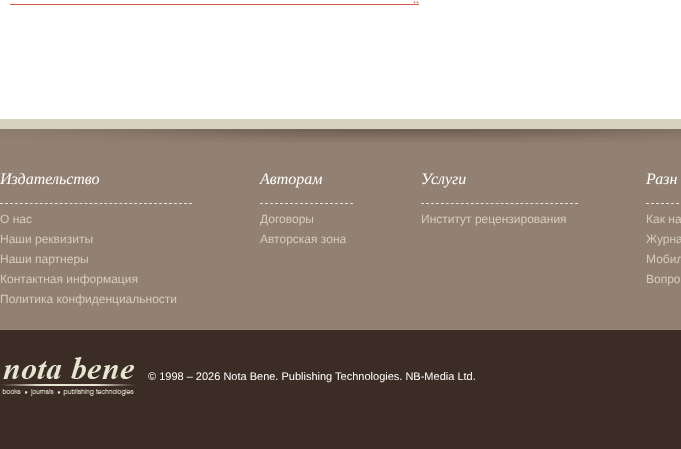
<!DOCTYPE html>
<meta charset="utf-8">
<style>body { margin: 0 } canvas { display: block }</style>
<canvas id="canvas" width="681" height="449"></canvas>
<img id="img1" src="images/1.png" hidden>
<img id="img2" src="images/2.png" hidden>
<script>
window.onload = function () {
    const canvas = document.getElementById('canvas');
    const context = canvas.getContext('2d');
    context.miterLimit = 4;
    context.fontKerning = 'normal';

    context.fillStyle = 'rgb(255, 255, 255)';
    context.fillRect(0, 0, 681, 449);
    context.fillStyle = 'rgb(210, 89, 74)';
    context.fillRect(10, 4, 409, 1);
    context.fillStyle = 'rgb(216, 210, 193)';
    context.fillRect(0, 119, 681, 10);
    context.fillStyle = 'rgb(146, 129, 114)';
    context.fillRect(0, 143, 681, 187);
    context.drawImage(document.getElementById('img1'), 0, 129, 681, 14);
    context.beginPath();
    context.moveTo(0, 203.5);
    context.lineTo(192, 203.5);
    context.strokeStyle = 'rgb(229, 226, 223)';
    context.setLineDash([3, 1.97]);
    context.stroke();
    context.beginPath();
    context.moveTo(260, 203.5);
    context.lineTo(353, 203.5);
    context.setLineDash([3, 2]);
    context.stroke();
    context.beginPath();
    context.moveTo(421, 203.5);
    context.lineTo(578, 203.5);
    context.setLineDash([3, 1.97]);
    context.stroke();
    context.beginPath();
    context.moveTo(646, 203.5);
    context.lineTo(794, 203.5);
    context.setLineDash([3, 2]);
    context.stroke();
    context.fillStyle = 'rgb(59, 44, 37)';
    context.fillRect(0, 330, 681, 119);
    context.drawImage(document.getElementById('img2'), 0, 357, 135, 39);
    context.font = '14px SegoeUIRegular';
    context.fillStyle = 'rgb(210, 89, 74)';
    context.fillText('..', 413, 3);
    context.font = 'italic 16px Liberation Serif';
    context.fillStyle = 'rgb(255, 255, 255)';
    context.fillText('Издательство', 0, 184);
    context.font = '12px Liberation Sans';
    context.fillStyle = 'rgb(213, 205, 186)';
    context.fillText('О нас', 0, 223);
    context.fillText('Наши реквизиты', 0, 243);
    context.fillText('Наши партнеры', 0, 263);
    context.fillText('Контактная информация', 0, 283);
    context.fillText('Политика конфиденциальности', 0, 303);
    context.font = 'italic 16px Liberation Serif';
    context.fillStyle = 'rgb(255, 255, 255)';
    context.fillText('Авторам', 260, 184);
    context.font = '12px Liberation Sans';
    context.fillStyle = 'rgb(213, 205, 186)';
    context.fillText('Договоры', 260, 223);
    context.fillText('Авторская зона', 260, 243);
    context.font = 'italic 16px Liberation Serif';
    context.fillStyle = 'rgb(255, 255, 255)';
    context.fillText('Услуги', 421, 184);
    context.font = '12px Liberation Sans';
    context.fillStyle = 'rgb(213, 205, 186)';
    context.fillText('Институт рецензирования', 421, 223);
    context.font = 'italic 16px Liberation Serif';
    context.fillStyle = 'rgb(255, 255, 255)';
    context.fillText('Разн', 646, 184);
    context.font = '12px Liberation Sans';
    context.fillStyle = 'rgb(213, 205, 186)';
    context.fillText('Как на', 646, 223);
    context.fillText('Журна', 646, 243);
    context.fillText('Мобил', 646, 263);
    context.fillText('Вопро', 646, 283);
    context.font = '11px Liberation Sans';
    context.fillStyle = 'rgb(255, 255, 255)';
    context.fillText('© 1998 – 2026 Nota Bene. Publishing Technologies. NB-Media Ltd.', 148, 380);
};
</script>
